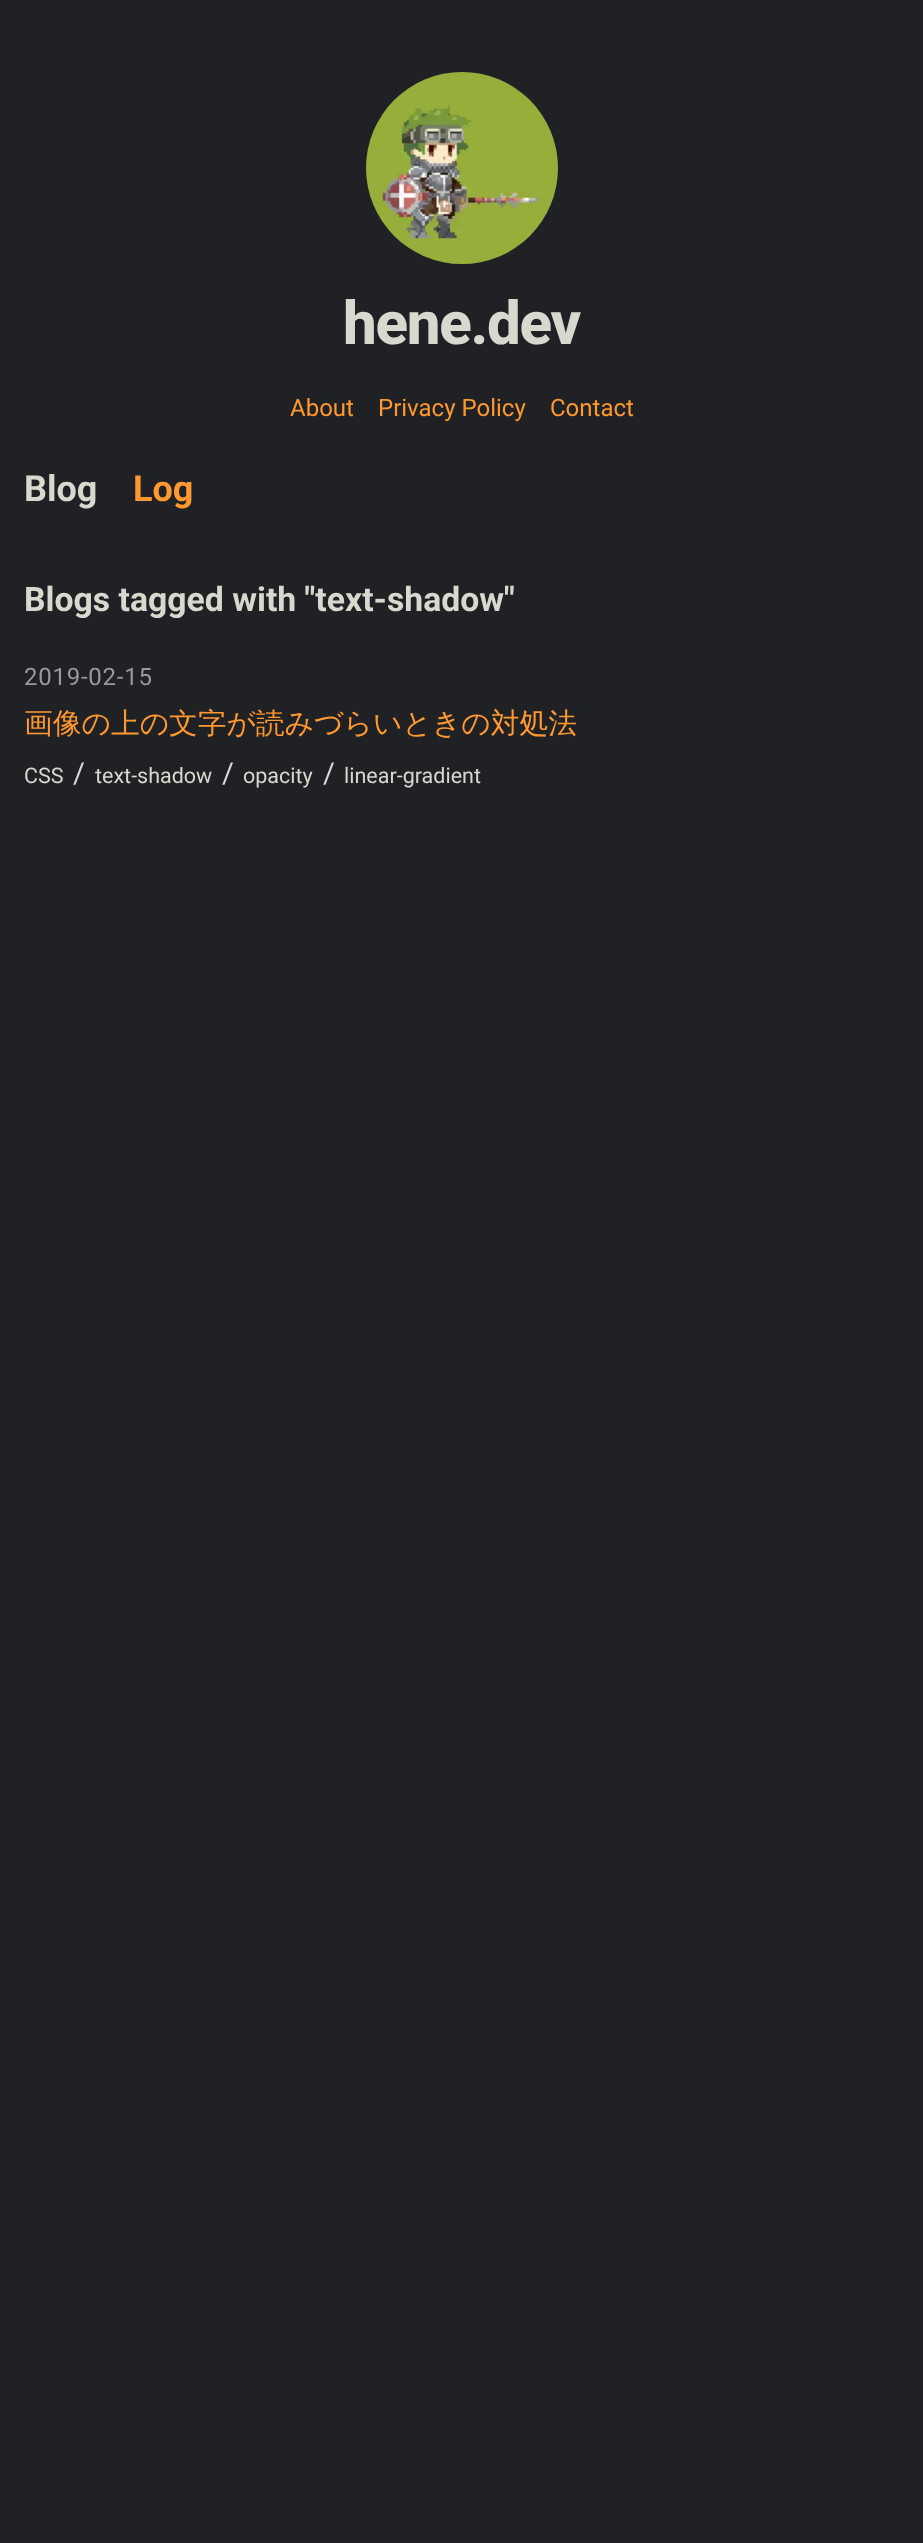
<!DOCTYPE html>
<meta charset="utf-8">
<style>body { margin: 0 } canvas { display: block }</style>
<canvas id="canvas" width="923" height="2543"></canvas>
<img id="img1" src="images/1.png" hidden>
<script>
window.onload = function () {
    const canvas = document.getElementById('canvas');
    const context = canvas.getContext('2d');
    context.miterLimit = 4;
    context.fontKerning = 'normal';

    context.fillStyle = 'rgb(32, 33, 36)';
    context.fillRect(0, 0, 923, 2543);
    context.drawImage(document.getElementById('img1'), 366, 72, 192, 192);
    context.letterSpacing = '-1.25px';
    context.font = '800 60px Roboto';
    context.fillStyle = 'rgb(213, 217, 206)';
    context.fillText('hene.dev', 343, 344);
    context.letterSpacing = '0px';
    context.font = '24px Roboto';
    context.fillStyle = 'rgb(255, 152, 48)';
    context.fillText('About', 290, 416);
    context.fillText('Privacy Policy', 378, 416);
    context.fillText('Contact', 550, 416);
    context.font = 'bold 36px Roboto';
    context.fillStyle = 'rgb(213, 217, 206)';
    context.fillText('Blog', 24, 501);
    context.fillStyle = 'rgb(255, 152, 48)';
    context.fillText('Log', 133, 501);
    context.font = 'bold 33.75px Roboto';
    context.fillStyle = 'rgb(213, 217, 206)';
    context.fillText('Blogs tagged with "text-shadow"', 24, 611);
    context.letterSpacing = '0.75px';
    context.font = '24px Roboto';
    context.fillStyle = 'rgb(153, 153, 153)';
    context.fillText('2019-02-15', 24, 685);
    context.letterSpacing = '0px';
    context.font = '500 28.75px WenQuanYi Zen Hei';
    context.fillStyle = 'rgb(255, 152, 48)';
    context.fillText('画像の上の文字が読みづらいときの対処法', 24, 733);
    context.font = '21.5px Roboto';
    context.fillStyle = 'rgb(213, 217, 206)';
    context.fillText('CSS', 24, 783);
    context.font = '28.75px Roboto';
    context.fillText('/', 73, 783);
    context.font = '21.5px Roboto';
    context.fillText('text-shadow', 95, 783);
    context.font = '28.75px Roboto';
    context.fillText('/', 222, 783);
    context.font = '21.5px Roboto';
    context.fillText('opacity', 243, 783);
    context.font = '28.75px Roboto';
    context.fillText('/', 323, 783);
    context.font = '21.5px Roboto';
    context.fillText('linear-gradient', 344, 783);
};
</script>
